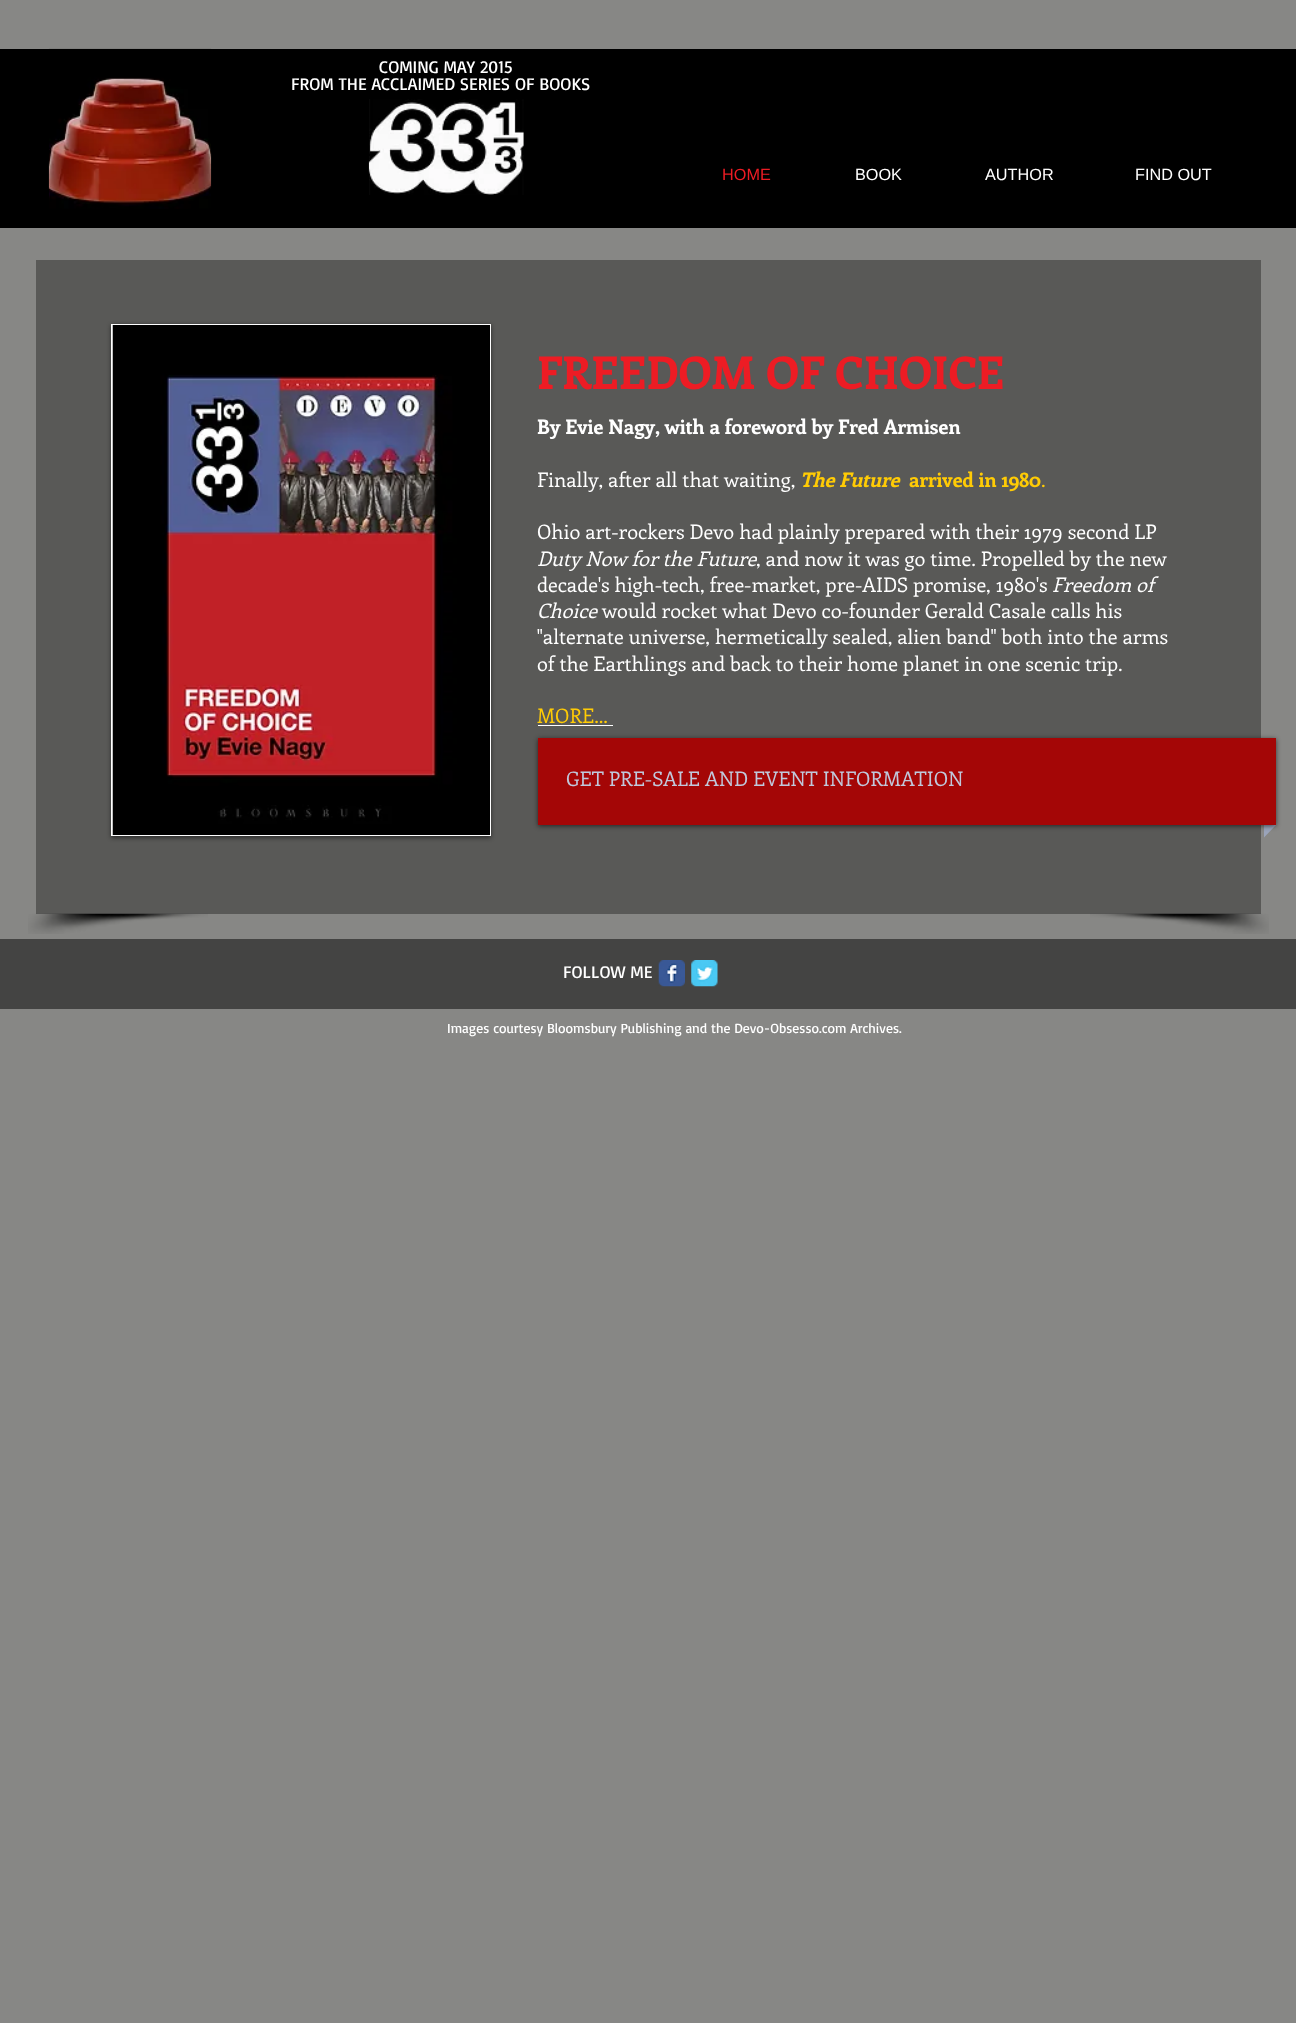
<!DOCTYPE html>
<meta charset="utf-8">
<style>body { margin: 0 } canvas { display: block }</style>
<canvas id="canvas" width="1296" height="2023"></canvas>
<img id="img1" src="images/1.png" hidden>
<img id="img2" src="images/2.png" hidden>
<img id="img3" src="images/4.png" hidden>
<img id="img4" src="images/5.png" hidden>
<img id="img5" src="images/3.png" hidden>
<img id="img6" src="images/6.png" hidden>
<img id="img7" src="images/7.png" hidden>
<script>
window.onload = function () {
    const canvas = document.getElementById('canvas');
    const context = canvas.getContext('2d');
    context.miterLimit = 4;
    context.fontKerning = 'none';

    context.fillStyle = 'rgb(135, 135, 133)';
    context.fillRect(0, 0, 1296, 2023);
    context.fillStyle = 'rgb(0, 0, 0)';
    context.fillRect(0, 49, 1296, 179);
    context.drawImage(document.getElementById('img1'), 48, 48, 164, 161);
    context.drawImage(document.getElementById('img2'), 368, 99, 156, 96);
    context.drawImage(document.getElementById('img3'), 28, 913, 180, 21);
    context.drawImage(document.getElementById('img4'), 1090, 913, 179, 21);
    context.fillStyle = 'rgba(0, 0, 0, 0.34)';
    context.fillRect(36, 260, 1225, 654);
    context.fillStyle = 'rgba(0, 0, 0, 0.5)';
    context.filter = 'blur(2px)';
    context.beginPath();
    context.rect(111, 325, 380, 513);
    context.fill();
    context.filter = 'none';
    context.fillStyle = 'rgb(255, 255, 255)';
    context.fillRect(111, 324, 380, 512);
    context.drawImage(document.getElementById('img5'), 112, 325, 378, 510);
    context.fillRect(538, 725, 75, 1);
    context.fillStyle = 'rgb(154, 164, 186)';
    context.beginPath();
    context.moveTo(1264, 825);
    context.lineTo(1276, 825);
    context.lineTo(1264, 837.5);
    context.closePath();
    context.fill();
    context.fillStyle = 'rgba(0, 0, 0, 0.6)';
    context.filter = 'blur(2.5px)';
    context.beginPath();
    context.rect(538, 739, 738, 87);
    context.fill();
    context.filter = 'none';
    context.fillStyle = 'rgb(164, 6, 6)';
    context.fillRect(538, 738, 738, 87);
    context.fillStyle = 'rgb(68, 68, 67)';
    context.fillRect(0, 939, 1296, 70);
    context.drawImage(document.getElementById('img6'), 658, 960, 27, 27);
    context.drawImage(document.getElementById('img7'), 691, 960, 27, 27);
    context.font = '17.5px Basic';
    context.fillStyle = 'rgb(255, 255, 255)';
    context.fillText('COMING MAY 2015', 379, 73);
    context.fillText('FROM THE ACCLAIMED SERIES OF BOOKS', 291, 90);
    context.font = '16.25px Liberation Sans';
    context.fillStyle = 'rgb(237, 28, 36)';
    context.fillText('HOME', 722, 180);
    context.fillStyle = 'rgb(255, 255, 255)';
    context.fillText('BOOK', 855, 180);
    context.fillText('AUTHOR', 985, 180);
    context.fillText('FIND OUT', 1135, 180);
    context.font = 'bold 45px Enriqueta';
    context.fillStyle = 'rgb(237, 28, 36)';
    context.fillText('FREEDOM OF CHOICE', 537, 389);
    context.font = 'bold 20px Enriqueta';
    context.fillStyle = 'rgb(255, 255, 255)';
    context.fillText('By Evie Nagy, with a foreword by Fred Armisen', 537, 434);
    context.font = '20px Enriqueta';
    context.fillText('Finally, after all that waiting,', 537, 487);
    context.font = 'italic bold 20px Enriqueta';
    context.fillStyle = 'rgb(255, 203, 5)';
    context.fillText('The Future', 800, 487);
    context.font = 'bold 20px Enriqueta';
    context.fillText('arrived in 1980', 909, 487);
    context.font = '20px Enriqueta';
    context.fillText('.', 1041, 487);
    context.fillStyle = 'rgb(255, 255, 255)';
    context.fillText('Ohio art-rockers Devo had plainly prepared with their 1979 second LP', 537, 539);
    context.font = 'italic 20px Enriqueta';
    context.fillText('Duty Now for the Future', 537, 566);
    context.font = '20px Enriqueta';
    context.fillText(', and now it was go time. Propelled by the new', 756, 566);
    context.fillText('decade\'s high-tech, free-market, pre-AIDS promise, 1980\'s', 537, 592);
    context.font = 'italic 20px Enriqueta';
    context.fillText('Freedom of', 1052, 592);
    context.fillText('Choice', 537, 618);
    context.font = '20px Enriqueta';
    context.fillText('would rocket what Devo co-founder Gerald Casale calls his', 602, 618);
    context.fillText('"alternate universe, hermetically sealed, alien band" both into the arms', 537, 644);
    context.fillText('of the Earthlings and back to their home planet in one scenic trip.', 537, 671);
    context.fillStyle = 'rgb(255, 203, 5)';
    context.fillText('MORE...', 537, 723);
    context.fillStyle = 'rgb(192, 201, 220)';
    context.fillText('GET PRE-SALE AND EVENT INFORMATION', 566, 786);
    context.font = '17.5px Basic';
    context.fillStyle = 'rgb(255, 255, 255)';
    context.fillText('FOLLOW ME', 563, 978);
    context.font = '13.75px Basic';
    context.fillText('Images courtesy Bloomsbury Publishing and the Devo-Obsesso.com Archives.', 447, 1033);
};
</script>
